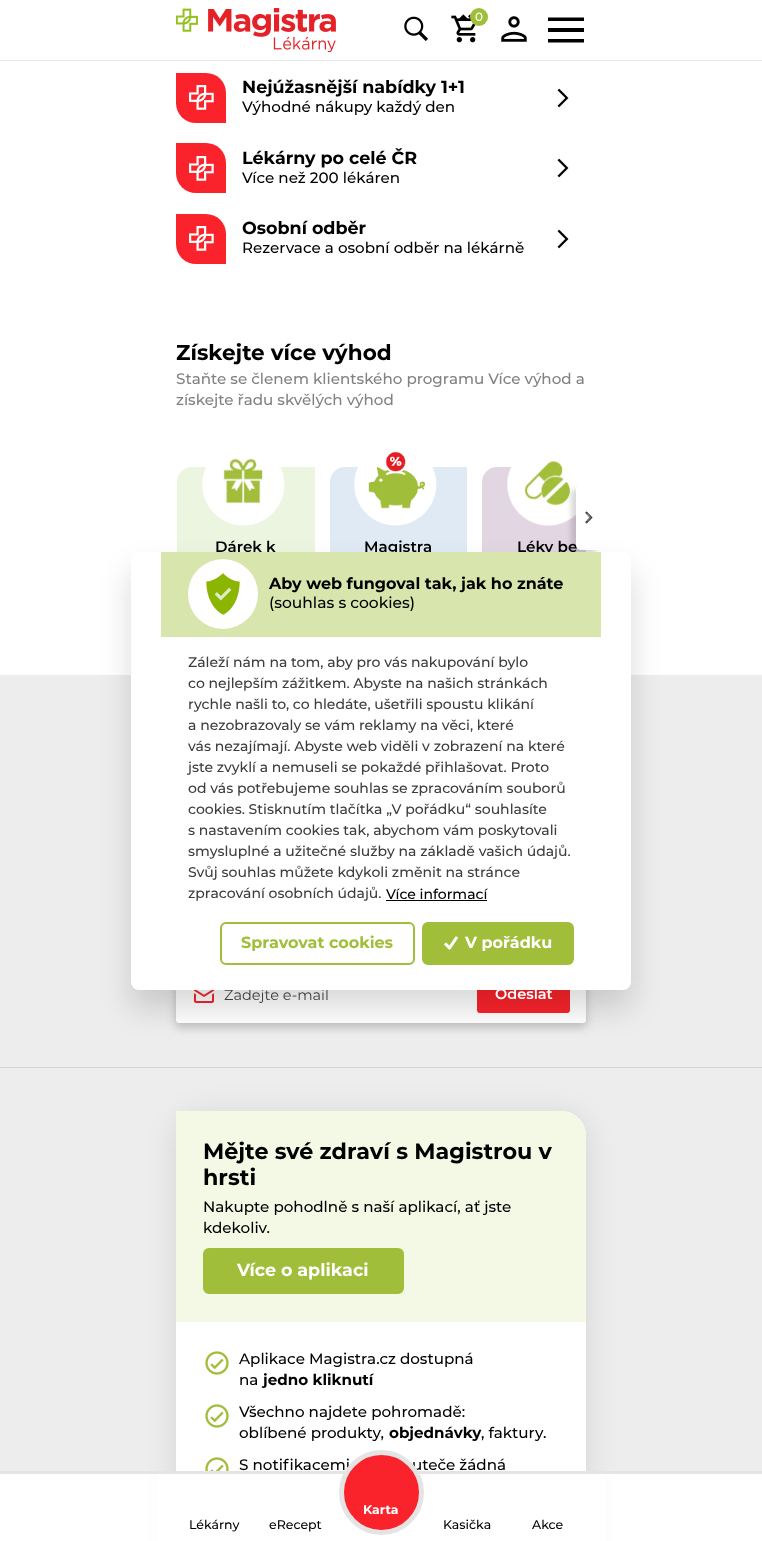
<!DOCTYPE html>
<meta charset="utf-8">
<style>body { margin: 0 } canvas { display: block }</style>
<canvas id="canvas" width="762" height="1541"></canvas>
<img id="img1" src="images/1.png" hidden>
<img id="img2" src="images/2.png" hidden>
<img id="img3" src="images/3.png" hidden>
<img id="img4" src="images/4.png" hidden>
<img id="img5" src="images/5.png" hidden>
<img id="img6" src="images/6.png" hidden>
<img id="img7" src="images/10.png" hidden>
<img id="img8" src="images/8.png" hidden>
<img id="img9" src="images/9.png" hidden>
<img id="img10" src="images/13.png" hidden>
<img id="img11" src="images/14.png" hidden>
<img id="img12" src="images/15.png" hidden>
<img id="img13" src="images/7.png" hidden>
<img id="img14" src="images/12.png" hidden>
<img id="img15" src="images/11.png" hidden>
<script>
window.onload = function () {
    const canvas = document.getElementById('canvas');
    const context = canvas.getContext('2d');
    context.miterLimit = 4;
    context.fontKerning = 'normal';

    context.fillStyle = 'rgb(255, 255, 255)';
    context.fillRect(0, 0, 762, 1541);
    context.fillStyle = 'rgb(230, 230, 230)';
    context.fillRect(0, 60, 762, 1);
    context.drawImage(document.getElementById('img1'), 176, 8, 160, 44);
    context.drawImage(document.getElementById('img2'), 404, 16, 24, 25);
    context.drawImage(document.getElementById('img3'), 451, 14, 25, 29);
    context.fillStyle = 'rgb(160, 190, 57)';
    context.beginPath();
    context.arc(479, 17, 9, 0, 2 * Math.PI);
    context.fill();
    context.drawImage(document.getElementById('img4'), 501, 16, 26, 26);
    context.fillStyle = 'rgb(0, 0, 0)';
    context.beginPath();
    context.moveTo(548, 17.5);
    context.lineTo(548, 21);
    context.lineTo(584, 21);
    context.lineTo(584, 17.5);
    context.closePath();
    context.moveTo(548, 28);
    context.lineTo(548, 32);
    context.lineTo(584, 32);
    context.lineTo(584, 28);
    context.closePath();
    context.moveTo(548, 39);
    context.lineTo(548, 42.5);
    context.lineTo(584, 42.5);
    context.lineTo(584, 39);
    context.closePath();
    context.fill();
    context.drawImage(document.getElementById('img5'), 557, 88, 12, 20);
    context.fillStyle = 'rgb(250, 35, 43)';
    context.beginPath();
    context.roundRect(176, 73, 50, 50, [0, 20, 0, 20]);
    context.fill();
    context.drawImage(document.getElementById('img6'), 189, 85, 25, 25);
    context.drawImage(document.getElementById('img5'), 557, 158, 12, 20);
    context.beginPath();
    context.roundRect(176, 143, 50, 50, [0, 20, 0, 20]);
    context.fill();
    context.drawImage(document.getElementById('img6'), 189, 156, 25, 25);
    context.drawImage(document.getElementById('img5'), 557, 229, 12, 20);
    context.beginPath();
    context.roundRect(176, 214, 50, 50, [0, 20, 0, 20]);
    context.fill();
    context.drawImage(document.getElementById('img6'), 189, 226, 25, 25);
    context.fillStyle = 'rgb(227, 214, 227)';
    context.beginPath();
    context.roundRect(482, 467, 104, 141, [15, 0, 0, 0]);
    context.fill();
    context.drawImage(document.getElementById('img7'), 507, 460, 79, 66);
    context.fillStyle = 'rgba(0, 0, 0, 0.15)';
    context.filter = 'blur(2.5px)';
    context.beginPath();
    context.roundRect(571, 489, 25, 65, 5);
    context.fill();
    context.filter = 'none';
    context.fillStyle = 'rgb(236, 245, 224)';
    context.beginPath();
    context.roundRect(177, 467, 138, 141, [15, 0, 15, 0]);
    context.fill();
    context.drawImage(document.getElementById('img8'), 202, 457, 83, 69);
    context.fillStyle = 'rgb(223, 234, 244)';
    context.beginPath();
    context.roundRect(330, 467, 137, 141, [15, 0, 15, 0]);
    context.fill();
    context.drawImage(document.getElementById('img9'), 354, 451, 83, 75);
    context.fillStyle = 'rgb(237, 237, 237)';
    context.fillRect(0, 675, 762, 796);
    context.fillStyle = 'rgb(213, 213, 213)';
    context.fillRect(0, 1067, 762, 1);
    context.fillStyle = 'rgba(0, 0, 0, 0.1)';
    context.filter = 'blur(5px)';
    context.beginPath();
    context.roundRect(176, 970, 410, 57, 3);
    context.fill();
    context.filter = 'none';
    context.filter = 'blur(5px)';
    context.beginPath();
    context.roundRect(176, 970, 410, 57, 3);
    context.fill();
    context.filter = 'none';
    context.fillStyle = 'rgb(255, 255, 255)';
    context.beginPath();
    context.roundRect(176, 966, 410, 57, 3);
    context.fill();
    context.drawImage(document.getElementById('img10'), 194, 990, 20, 13);
    context.fillStyle = 'rgb(250, 35, 43)';
    context.beginPath();
    context.roundRect(478, 978, 91, 34, 2);
    context.fill();
    context.strokeStyle = 'rgb(250, 35, 43)';
    context.lineWidth = 2;
    context.stroke();
    context.fillStyle = 'rgba(0, 0, 0, 0.1)';
    context.filter = 'blur(15px)';
    context.beginPath();
    context.roundRect(176, 1115, 410, 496, 25);
    context.fill();
    context.filter = 'none';
    context.fillStyle = 'rgb(255, 255, 255)';
    context.beginPath();
    context.moveTo(176, 1111);
    context.lineTo(561, 1111);
    context.bezierCurveTo(575, 1111, 586, 1122, 586, 1136);
    context.lineTo(586, 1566);
    context.lineTo(201, 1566);
    context.bezierCurveTo(187, 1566, 176, 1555, 176, 1541);
    context.closePath();
    context.fill();
    context.fillStyle = 'rgb(244, 249, 229)';
    context.beginPath();
    context.roundRect(176, 1111, 410, 211, [0, 25, 0, 0]);
    context.fill();
    context.fillStyle = 'rgb(160, 190, 57)';
    context.beginPath();
    context.roundRect(204, 1249, 199, 44, 5);
    context.fill();
    context.strokeStyle = 'rgb(160, 190, 57)';
    context.stroke();
    context.drawImage(document.getElementById('img11'), 205, 1351, 24, 24);
    context.drawImage(document.getElementById('img11'), 205, 1404, 24, 24);
    context.drawImage(document.getElementById('img12'), 205, 1457, 24, 14);
    context.fillStyle = 'rgb(255, 255, 255)';
    context.fillRect(157, 1474, 448, 67);
    context.fillStyle = 'rgb(228, 228, 228)';
    context.fillRect(0, 1471, 762, 3);
    context.font = '500 12px Montserrat';
    context.fillStyle = 'rgb(255, 255, 255)';
    context.fillText('0', 475, 21);
    context.font = 'bold 17.5px Montserrat';
    context.fillStyle = 'rgb(0, 0, 0)';
    context.fillText('Nejúžasnější nabídky 1+1', 242, 93);
    context.font = '500 15.15px Montserrat';
    context.fillText('Výhodné nákupy každý den', 242, 112);
    context.font = 'bold 17.5px Montserrat';
    context.fillText('Lékárny po celé ČR', 242, 164);
    context.font = '500 15.15px Montserrat';
    context.fillText('Více než 200 lékáren', 242, 183);
    context.font = 'bold 17.5px Montserrat';
    context.fillText('Osobní odběr', 242, 234);
    context.font = '500 15.15px Montserrat';
    context.fillText('Rezervace a osobní odběr na lékárně', 242, 253);
    context.font = 'bold 21.5px Montserrat';
    context.fillText('Získejte více výhod', 176, 360);
    context.font = '500 15.15px Montserrat';
    context.fillStyle = 'rgb(130, 130, 130)';
    context.fillText('Staňte se členem klientského programu Více výhod a', 176, 384);
    context.fillText('získejte řadu skvělých výhod', 176, 405);
    context.font = '600 15.15px Montserrat';
    context.fillStyle = 'rgb(0, 0, 0)';
    context.fillText('Dárek k', 215, 552);
    context.fillText('Magistra', 364, 552);
    context.fillText('Léky be', 517, 552);
    context.fillStyle = 'rgb(255, 255, 255)';
    context.beginPath();
    context.roundRect(576, 485, 25, 65, [5, 0, 0, 5]);
    context.fill();
    context.drawImage(document.getElementById('img13'), 585, 511, 8, 13);
    context.font = '500 18px Montserrat';
    context.fillStyle = 'rgb(130, 130, 130)';
    context.fillText('›', 586, 522);
    context.fillStyle = 'rgba(0, 0, 0, 0.15)';
    context.filter = 'blur(15px)';
    context.beginPath();
    context.roundRect(131, 570, 500, 438, 8);
    context.fill();
    context.filter = 'none';
    context.font = '14.5px Montserrat';
    context.fillStyle = 'rgb(61, 61, 61)';
    context.fillText('Zadejte e-mail', 224, 1000);
    context.fillStyle = 'rgb(255, 255, 255)';
    context.beginPath();
    context.roundRect(131, 552, 500, 438, 8);
    context.fill();
    context.fillStyle = 'rgb(160, 190, 57)';
    context.beginPath();
    context.roundRect(423, 923, 150, 41, 5);
    context.fill();
    context.stroke();
    context.drawImage(document.getElementById('img14'), 444, 936, 14, 14);
    context.font = 'bold 16px Montserrat';
    context.fillStyle = 'rgb(255, 255, 255)';
    context.fillText('V pořádku', 465, 948);
    context.beginPath();
    context.roundRect(221, 923, 193, 41, 5);
    context.stroke();
    context.fillStyle = 'rgb(160, 190, 57)';
    context.fillText('Spravovat cookies', 241, 948);
    context.font = '500 14px Montserrat';
    context.fillStyle = 'rgb(0, 0, 0)';
    context.fillText('Více informací', 386, 899);
    context.fillRect(386, 900, 101, 1);
    context.fillStyle = 'rgb(216, 229, 172)';
    context.fillRect(161, 552, 440, 85);
    context.fillStyle = 'rgb(255, 255, 255)';
    context.beginPath();
    context.arc(223, 594, 35, 0, 2 * Math.PI);
    context.fill();
    context.drawImage(document.getElementById('img15'), 206, 573, 34, 42);
    context.font = '500 15.5px Montserrat';
    context.fillStyle = 'rgb(0, 0, 0)';
    context.fillText('(souhlas s cookies)', 269, 608);
    context.font = 'bold 16px Montserrat';
    context.fillText('Aby web fungoval tak, jak ho znáte', 269, 589);
    context.font = '500 14px Montserrat';
    context.fillStyle = 'rgb(61, 61, 61)';
    context.fillText('zpracování osobních údajů.', 188, 898);
    context.fillText('Svůj souhlas můžete kdykoli změnit na stránce', 188, 877);
    context.fillText('smysluplné a užitečné služby na základě vašich údajů.', 188, 856);
    context.fillText('s nastavením cookies tak, abychom vám poskytovali', 188, 835);
    context.fillText('cookies. Stisknutím tlačítka „V pořádku“ souhlasíte', 188, 814);
    context.fillText('od vás potřebujeme souhlas se zpracováním souborů', 188, 793);
    context.fillText('jste zvyklí a nemuseli se pokaždé přihlašovat. Proto', 188, 772);
    context.fillText('vás nezajímají. Abyste web viděli v zobrazení na které', 188, 751);
    context.fillText('a nezobrazovaly se vám reklamy na věci, které', 188, 730);
    context.fillText('rychle našli to, co hledáte, ušetřili spoustu klikání', 188, 709);
    context.fillText('co nejlepším zážitkem. Abyste na našich stránkách', 188, 688);
    context.fillText('Záleží nám na tom, aby pro vás nakupování bylo', 188, 667);
    context.font = '600 14.5px Montserrat';
    context.fillStyle = 'rgb(255, 255, 255)';
    context.fillText('Odeslat', 495, 999);
    context.font = 'bold 22.25px Montserrat';
    context.fillStyle = 'rgb(0, 0, 0)';
    context.fillText('Mějte své zdraví s Magistrou v', 203, 1159);
    context.fillText('hrsti', 203, 1185);
    context.font = '500 15.15px Montserrat';
    context.fillText('Nakupte pohodlně s naší aplikací, ať jste', 203, 1212);
    context.fillText('kdekoliv.', 203, 1233);
    context.font = 'bold 17.5px Montserrat';
    context.fillStyle = 'rgb(255, 255, 255)';
    context.fillText('Více o aplikaci', 237, 1276);
    context.font = '500 15.15px Montserrat';
    context.fillStyle = 'rgb(0, 0, 0)';
    context.fillText('Aplikace Magistra.cz dostupná', 239, 1364);
    context.fillText('na', 239, 1385);
    context.font = 'bold 15.15px Montserrat';
    context.fillText('jedno kliknutí', 263, 1385);
    context.font = '500 15.15px Montserrat';
    context.fillText('Všechno najdete pohromadě:', 239, 1417);
    context.fillText('oblíbené produkty,', 239, 1438);
    context.font = 'bold 15.15px Montserrat';
    context.fillText('objednávky', 389, 1438);
    context.font = '500 15.15px Montserrat';
    context.fillText(', faktury.', 481, 1438);
    context.fillText('S notifikacemi', 239, 1470);
    context.fillText('uteče žádná', 412, 1470);
    context.fillStyle = 'rgb(250, 35, 43)';
    context.beginPath();
    context.arc(381.5, 1492.5, 40, 0, 2 * Math.PI);
    context.fill();
    context.strokeStyle = 'rgb(228, 228, 228)';
    context.lineWidth = 5;
    context.stroke();
    context.font = 'bold 12.5px Montserrat';
    context.fillStyle = 'rgb(255, 255, 255)';
    context.fillText('Karta', 363, 1514);
    context.font = '500 12.5px Montserrat';
    context.fillStyle = 'rgb(0, 0, 0)';
    context.fillText('Lékárny', 189, 1529);
    context.fillText('eRecept', 269, 1529);
    context.fillText('Kasička', 443, 1529);
    context.fillText('Akce', 532, 1529);
};
</script>
